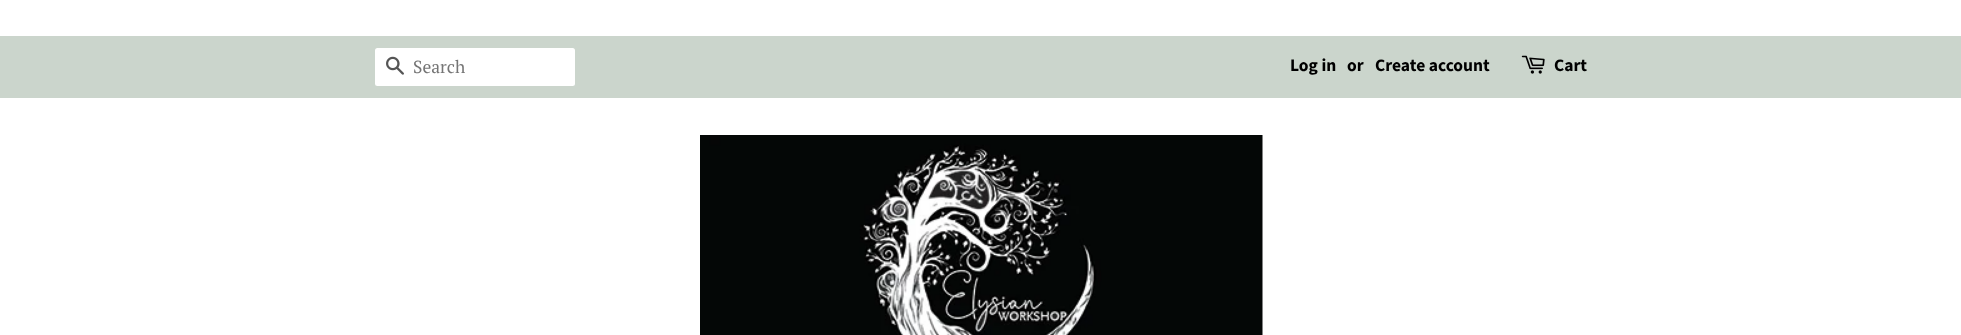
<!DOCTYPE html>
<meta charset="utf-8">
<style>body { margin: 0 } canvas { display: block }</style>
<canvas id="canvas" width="1961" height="335"></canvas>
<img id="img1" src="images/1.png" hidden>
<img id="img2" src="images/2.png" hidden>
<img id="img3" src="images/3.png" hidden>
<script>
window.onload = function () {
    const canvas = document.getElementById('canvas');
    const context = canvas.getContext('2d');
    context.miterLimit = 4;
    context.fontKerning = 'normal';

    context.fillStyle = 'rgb(255, 255, 255)';
    context.fillRect(0, 0, 1961, 335);
    context.fillStyle = 'rgb(203, 213, 204)';
    context.fillRect(0, 36, 1961, 62);
    context.fillStyle = 'rgb(255, 255, 255)';
    context.beginPath();
    context.roundRect(375, 48, 200, 38, 2.5);
    context.fill();
    context.drawImage(document.getElementById('img1'), 386, 56, 18, 19);
    context.drawImage(document.getElementById('img2'), 1521, 55, 24, 19);
    context.drawImage(document.getElementById('img3'), 700, 135, 563, 200);
    context.font = '17.5px PT Serif';
    context.fillStyle = 'rgb(117, 117, 117)';
    context.fillText('Search', 413, 73);
    context.font = 'bold 17.5px Source Sans Pro';
    context.fillStyle = 'rgb(0, 0, 0)';
    context.fillText('Log in', 1290, 71);
    context.fillText('or', 1347, 71);
    context.fillText('Create account', 1375, 71);
    context.fillText('Cart', 1554, 71);
};
</script>
